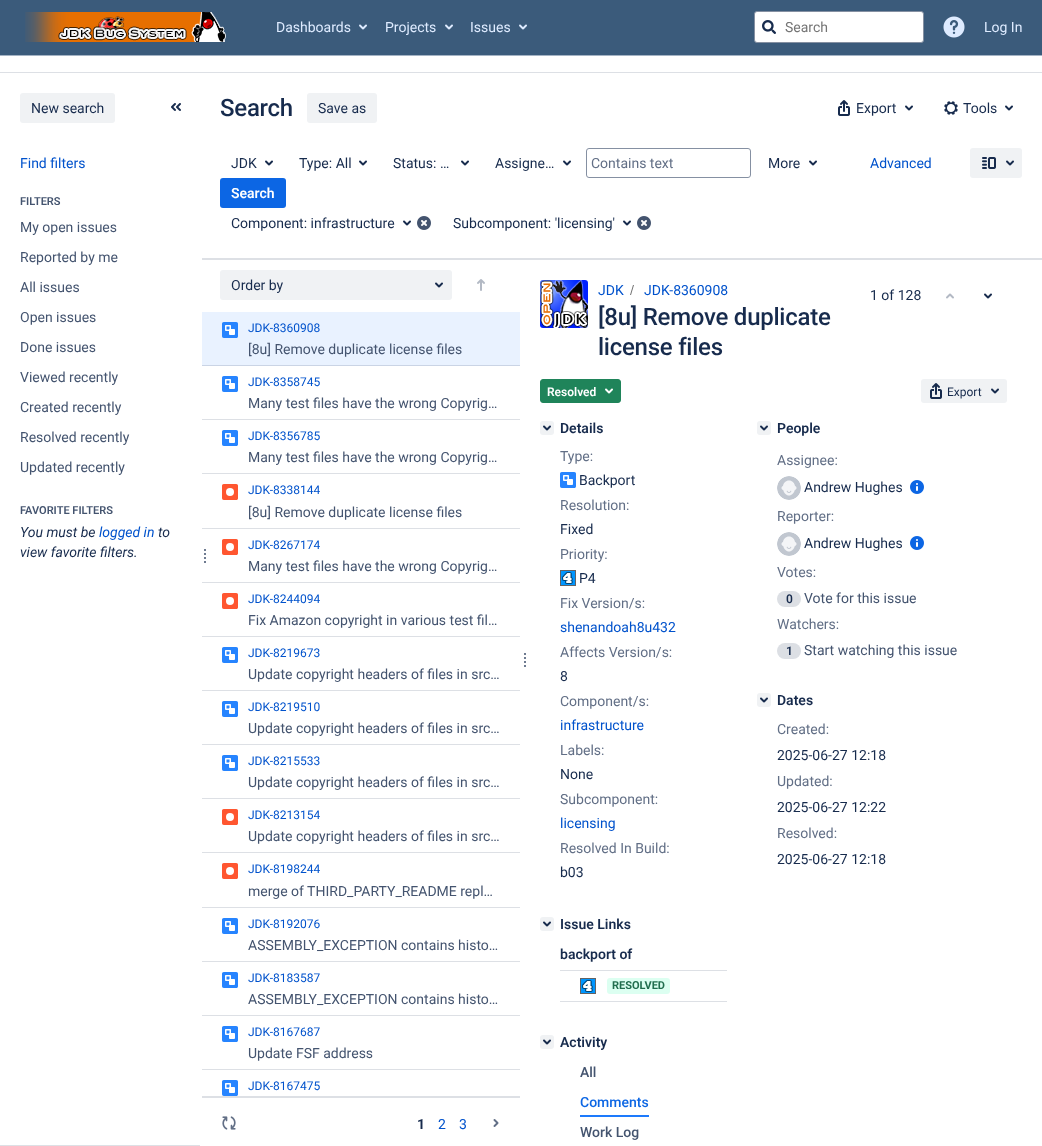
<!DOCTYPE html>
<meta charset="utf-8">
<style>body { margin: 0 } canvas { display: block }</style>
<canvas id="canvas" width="1042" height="1146"></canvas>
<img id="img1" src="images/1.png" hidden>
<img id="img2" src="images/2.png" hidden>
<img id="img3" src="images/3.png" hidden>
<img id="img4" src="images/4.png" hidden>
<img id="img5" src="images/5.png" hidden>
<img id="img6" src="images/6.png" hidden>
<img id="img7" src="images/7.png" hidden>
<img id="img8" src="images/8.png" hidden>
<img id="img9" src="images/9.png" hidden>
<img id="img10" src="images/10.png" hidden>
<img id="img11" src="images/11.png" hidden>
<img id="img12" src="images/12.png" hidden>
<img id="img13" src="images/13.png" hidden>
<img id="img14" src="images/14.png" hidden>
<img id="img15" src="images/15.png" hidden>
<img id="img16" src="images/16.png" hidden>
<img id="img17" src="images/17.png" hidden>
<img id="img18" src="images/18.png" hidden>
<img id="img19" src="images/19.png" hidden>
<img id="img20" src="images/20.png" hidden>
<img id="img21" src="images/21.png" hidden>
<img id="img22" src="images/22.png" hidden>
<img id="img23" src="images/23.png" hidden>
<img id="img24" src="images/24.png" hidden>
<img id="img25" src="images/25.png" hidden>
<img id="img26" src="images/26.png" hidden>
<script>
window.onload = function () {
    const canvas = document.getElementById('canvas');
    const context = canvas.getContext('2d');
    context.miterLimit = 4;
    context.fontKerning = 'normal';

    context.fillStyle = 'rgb(255, 255, 255)';
    context.fillRect(0, 0, 1042, 1146);
    context.fillStyle = 'rgb(59, 91, 123)';
    context.fillRect(0, 0, 1042, 55);
    context.fillStyle = 'rgb(164, 179, 196)';
    context.fillRect(0, 55, 1042, 1);
    context.drawImage(document.getElementById('img1'), 25, 12, 201, 30);
    context.drawImage(document.getElementById('img2'), 359, 24, 8, 6);
    context.drawImage(document.getElementById('img2'), 445, 24, 8, 6);
    context.drawImage(document.getElementById('img2'), 519, 24, 8, 6);
    context.fillStyle = 'rgb(255, 255, 255)';
    context.beginPath();
    context.roundRect(754.5, 11.5, 169, 31, 2.5);
    context.fill();
    context.strokeStyle = 'rgb(133, 144, 162)';
    context.stroke();
    context.drawImage(document.getElementById('img3'), 762, 20, 14, 14);
    context.drawImage(document.getElementById('img4'), 943, 16, 22, 22);
    context.fillStyle = 'rgb(221, 224, 229)';
    context.fillRect(0, 72, 1042, 1);
    context.fillRect(0, 1145, 200, 1);
    context.fillStyle = 'rgb(240, 242, 244)';
    context.beginPath();
    context.roundRect(20, 93, 95, 30, 3);
    context.fill();
    context.drawImage(document.getElementById('img5'), 171, 103, 10, 8);
    context.fillStyle = 'rgb(221, 224, 229)';
    context.fillRect(200, 258, 842, 2);
    context.fillRect(200, 1096, 320, 2);
    context.fillStyle = 'rgb(255, 255, 255)';
    context.fillRect(200, 258, 2, 840);
    context.drawImage(document.getElementById('img6'), 204, 549, 2, 14);
    context.fillStyle = 'rgb(240, 242, 244)';
    context.beginPath();
    context.roundRect(307, 93, 70, 30, 3);
    context.fill();
    context.drawImage(document.getElementById('img7'), 838, 100, 12, 16);
    context.drawImage(document.getElementById('img8'), 905, 105, 8, 6);
    context.drawImage(document.getElementById('img9'), 944, 101, 14, 14);
    context.drawImage(document.getElementById('img8'), 1005, 105, 8, 6);
    context.drawImage(document.getElementById('img8'), 265, 160, 8, 6);
    context.drawImage(document.getElementById('img8'), 359, 160, 8, 6);
    context.drawImage(document.getElementById('img8'), 461, 160, 8, 6);
    context.drawImage(document.getElementById('img8'), 563, 160, 8, 6);
    context.beginPath();
    context.roundRect(586.5, 148.5, 164, 29, 2.5);
    context.stroke();
    context.drawImage(document.getElementById('img8'), 809, 160, 8, 6);
    context.fillStyle = 'rgb(12, 102, 228)';
    context.beginPath();
    context.roundRect(220, 178, 66, 30, 3);
    context.fill();
    context.drawImage(document.getElementById('img8'), 403, 220, 8, 6);
    context.drawImage(document.getElementById('img10'), 417, 216, 14, 14);
    context.drawImage(document.getElementById('img8'), 623, 220, 8, 6);
    context.drawImage(document.getElementById('img10'), 637, 216, 14, 14);
    context.fillStyle = 'rgb(240, 242, 244)';
    context.beginPath();
    context.roundRect(970, 148, 52, 30, 3);
    context.fill();
    context.drawImage(document.getElementById('img11'), 982, 157, 14, 12);
    context.drawImage(document.getElementById('img12'), 1006, 160, 8, 6);
    context.beginPath();
    context.roundRect(220, 270, 232, 30, 3);
    context.fill();
    context.drawImage(document.getElementById('img12'), 435, 282, 8, 6);
    context.drawImage(document.getElementById('img13'), 477, 279, 8, 12);
    context.fillStyle = 'rgb(233, 242, 255)';
    context.fillRect(202, 312, 318, 53);
    context.fillStyle = 'rgb(202, 212, 229)';
    context.fillRect(202, 365, 318, 1);
    context.drawImage(document.getElementById('img14'), 222, 322, 16, 16);
    context.fillStyle = 'rgb(221, 224, 229)';
    context.fillRect(202, 419, 318, 1);
    context.drawImage(document.getElementById('img15'), 222, 376, 16, 16);
    context.fillRect(202, 473, 318, 1);
    context.drawImage(document.getElementById('img15'), 222, 430, 16, 16);
    context.fillRect(202, 528, 318, 1);
    context.drawImage(document.getElementById('img16'), 222, 484, 16, 16);
    context.fillRect(202, 582, 318, 1);
    context.drawImage(document.getElementById('img16'), 222, 539, 16, 16);
    context.fillRect(202, 636, 318, 1);
    context.drawImage(document.getElementById('img16'), 222, 593, 16, 16);
    context.fillRect(202, 690, 318, 1);
    context.drawImage(document.getElementById('img15'), 222, 647, 16, 16);
    context.fillRect(202, 744, 318, 1);
    context.drawImage(document.getElementById('img15'), 222, 701, 16, 16);
    context.fillRect(202, 798, 318, 1);
    context.drawImage(document.getElementById('img15'), 222, 755, 16, 16);
    context.fillRect(202, 852, 318, 1);
    context.drawImage(document.getElementById('img16'), 222, 809, 16, 16);
    context.fillRect(202, 907, 318, 1);
    context.drawImage(document.getElementById('img16'), 222, 863, 16, 16);
    context.fillRect(202, 961, 318, 1);
    context.drawImage(document.getElementById('img15'), 222, 918, 16, 16);
    context.fillRect(202, 1015, 318, 1);
    context.drawImage(document.getElementById('img15'), 222, 972, 16, 16);
    context.fillRect(202, 1069, 318, 1);
    context.drawImage(document.getElementById('img15'), 222, 1026, 16, 16);
    context.drawImage(document.getElementById('img15'), 222, 1080, 16, 16);
    context.drawImage(document.getElementById('img17'), 222, 1116, 14, 14);
    context.drawImage(document.getElementById('img18'), 493, 1119, 6, 8);
    context.drawImage(document.getElementById('img6'), 524, 653, 2, 14);
    context.drawImage(document.getElementById('img19'), 540, 280, 48, 48);
    context.fillStyle = 'rgb(112, 112, 112)';
    context.beginPath();
    context.moveTo(631, 295);
    context.lineTo(634, 285);
    context.lineTo(633, 285);
    context.lineTo(630, 295);
    context.closePath();
    context.fill();
    context.fillStyle = 'rgb(31, 132, 90)';
    context.beginPath();
    context.roundRect(540.5, 379.5, 80, 23, 2.5);
    context.fill();
    context.strokeStyle = 'rgb(31, 132, 90)';
    context.stroke();
    context.drawImage(document.getElementById('img20'), 605, 388, 8, 6);
    context.fillStyle = 'rgb(240, 242, 244)';
    context.beginPath();
    context.roundRect(921, 379, 86, 24, 3);
    context.fill();
    context.drawImage(document.getElementById('img21'), 930, 383, 12, 16);
    context.drawImage(document.getElementById('img12'), 991, 388, 8, 6);
    context.beginPath();
    context.roundRect(540, 421, 14, 14, 3);
    context.fill();
    context.drawImage(document.getElementById('img22'), 543, 425, 8, 6);
    context.drawImage(document.getElementById('img15'), 560, 472, 16, 16);
    context.drawImage(document.getElementById('img23'), 560, 570, 16, 16);
    context.beginPath();
    context.roundRect(540, 917, 14, 14, 3);
    context.fill();
    context.drawImage(document.getElementById('img22'), 543, 921, 8, 6);
    context.fillStyle = 'rgb(221, 224, 229)';
    context.fillRect(560, 970, 167, 1);
    context.fillRect(560, 1001, 167, 1);
    context.drawImage(document.getElementById('img23'), 580, 978, 16, 16);
    context.fillStyle = 'rgb(220, 255, 241)';
    context.beginPath();
    context.roundRect(607, 978, 63, 16, 3);
    context.fill();
    context.fillStyle = 'rgb(240, 242, 244)';
    context.beginPath();
    context.roundRect(540, 1035, 14, 14, 3);
    context.fill();
    context.drawImage(document.getElementById('img22'), 543, 1039, 8, 6);
    context.fillStyle = 'rgb(29, 122, 252)';
    context.fillRect(580, 1115, 69, 2);
    context.fillStyle = 'rgb(240, 242, 244)';
    context.beginPath();
    context.roundRect(757, 421, 14, 14, 3);
    context.fill();
    context.drawImage(document.getElementById('img22'), 760, 425, 8, 6);
    context.drawImage(document.getElementById('img24'), 777, 476, 24, 24);
    context.drawImage(document.getElementById('img25'), 910, 480, 14, 14);
    context.drawImage(document.getElementById('img24'), 777, 532, 24, 24);
    context.drawImage(document.getElementById('img25'), 910, 536, 14, 14);
    context.fillStyle = 'rgb(220, 223, 228)';
    context.beginPath();
    context.roundRect(777, 591, 24, 16, 8);
    context.fill();
    context.beginPath();
    context.roundRect(777, 643, 24, 16, 8);
    context.fill();
    context.fillStyle = 'rgb(240, 242, 244)';
    context.beginPath();
    context.roundRect(757, 693, 14, 14, 3);
    context.fill();
    context.drawImage(document.getElementById('img22'), 760, 697, 8, 6);
    context.drawImage(document.getElementById('img26'), 946, 293, 8, 6);
    context.drawImage(document.getElementById('img8'), 984, 293, 8, 6);
    context.font = '14px Roboto';
    context.fillStyle = 'rgb(222, 235, 255)';
    context.fillText('Dashboards', 276, 32);
    context.fillText('Projects', 385, 32);
    context.fillText('Issues', 470, 32);
    context.fillStyle = 'rgb(117, 117, 117)';
    context.fillText('Search', 785, 32);
    context.fillStyle = 'rgb(222, 235, 255)';
    context.fillText('Log In', 984, 32);
    context.fillStyle = 'rgb(23, 43, 77)';
    context.fillText('New search', 31, 113);
    context.fillStyle = 'rgb(0, 82, 204)';
    context.fillText('Find filters', 20, 168);
    context.font = '600 11px Roboto';
    context.fillStyle = 'rgb(68, 84, 111)';
    context.fillText('FILTERS', 20, 205);
    context.font = '14px Roboto';
    context.fillText('My open issues', 20, 232);
    context.fillText('Reported by me', 20, 262);
    context.fillText('All issues', 20, 292);
    context.fillText('Open issues', 20, 322);
    context.fillText('Done issues', 20, 352);
    context.fillText('Viewed recently', 20, 382);
    context.fillText('Created recently', 20, 412);
    context.fillText('Resolved recently', 20, 442);
    context.fillText('Updated recently', 20, 472);
    context.font = '600 11px Roboto';
    context.fillText('FAVORITE FILTERS', 20, 514);
    context.font = 'italic 14px Roboto';
    context.fillStyle = 'rgb(23, 43, 77)';
    context.fillText('You must be', 20, 537);
    context.fillStyle = 'rgb(0, 82, 204)';
    context.fillText('logged in', 99, 537);
    context.fillStyle = 'rgb(23, 43, 77)';
    context.fillText('to', 158, 537);
    context.fillText('view favorite filters.', 20, 557);
    context.letterSpacing = '-0.25px';
    context.font = '500 24px Roboto';
    context.fillText('Search', 220, 116);
    context.letterSpacing = '0px';
    context.font = '14px Roboto';
    context.fillText('Save as', 318, 113);
    context.fillText('Export', 856, 113);
    context.fillText('Tools', 963, 113);
    context.fillText('JDK', 231, 168);
    context.fillText('Type: All', 299, 168);
    context.fillText('Status: …', 393, 168);
    context.fillText('Assigne…', 495, 168);
    context.fillStyle = 'rgb(98, 111, 134)';
    context.fillText('Contains text', 591, 168);
    context.fillStyle = 'rgb(23, 43, 77)';
    context.fillText('More', 768, 168);
    context.font = '600 14px Roboto';
    context.fillStyle = 'rgb(255, 255, 255)';
    context.fillText('Search', 231, 198);
    context.font = '14px Roboto';
    context.fillStyle = 'rgb(23, 43, 77)';
    context.fillText('Component: infrastructure', 231, 228);
    context.fillText('Subcomponent: \'licensing\'', 453, 228);
    context.fillStyle = 'rgb(0, 82, 204)';
    context.fillText('Advanced', 870, 168);
    context.fillStyle = 'rgb(23, 43, 77)';
    context.fillText('Order by', 231, 290);
    context.font = '12px Roboto';
    context.fillStyle = 'rgb(0, 82, 204)';
    context.fillText('JDK-8360908', 248, 332);
    context.font = '14px Roboto';
    context.fillStyle = 'rgb(68, 84, 111)';
    context.fillText('[8u] Remove duplicate license files', 248, 354);
    context.font = '12px Roboto';
    context.fillStyle = 'rgb(0, 82, 204)';
    context.fillText('JDK-8358745', 248, 386);
    context.font = '14px Roboto';
    context.fillStyle = 'rgb(68, 84, 111)';
    context.fillText('Many test files have the wrong Copyrig…', 248, 408);
    context.font = '12px Roboto';
    context.fillStyle = 'rgb(0, 82, 204)';
    context.fillText('JDK-8356785', 248, 440);
    context.font = '14px Roboto';
    context.fillStyle = 'rgb(68, 84, 111)';
    context.fillText('Many test files have the wrong Copyrig…', 248, 462);
    context.font = '12px Roboto';
    context.fillStyle = 'rgb(0, 82, 204)';
    context.fillText('JDK-8338144', 248, 494);
    context.font = '14px Roboto';
    context.fillStyle = 'rgb(68, 84, 111)';
    context.fillText('[8u] Remove duplicate license files', 248, 517);
    context.font = '12px Roboto';
    context.fillStyle = 'rgb(0, 82, 204)';
    context.fillText('JDK-8267174', 248, 549);
    context.font = '14px Roboto';
    context.fillStyle = 'rgb(68, 84, 111)';
    context.fillText('Many test files have the wrong Copyrig…', 248, 571);
    context.font = '12px Roboto';
    context.fillStyle = 'rgb(0, 82, 204)';
    context.fillText('JDK-8244094', 248, 603);
    context.font = '14px Roboto';
    context.fillStyle = 'rgb(68, 84, 111)';
    context.fillText('Fix Amazon copyright in various test fil…', 248, 625);
    context.font = '12px Roboto';
    context.fillStyle = 'rgb(0, 82, 204)';
    context.fillText('JDK-8219673', 248, 657);
    context.font = '14px Roboto';
    context.fillStyle = 'rgb(68, 84, 111)';
    context.fillText('Update copyright headers of files in src…', 248, 679);
    context.font = '12px Roboto';
    context.fillStyle = 'rgb(0, 82, 204)';
    context.fillText('JDK-8219510', 248, 711);
    context.font = '14px Roboto';
    context.fillStyle = 'rgb(68, 84, 111)';
    context.fillText('Update copyright headers of files in src…', 248, 733);
    context.font = '12px Roboto';
    context.fillStyle = 'rgb(0, 82, 204)';
    context.fillText('JDK-8215533', 248, 765);
    context.font = '14px Roboto';
    context.fillStyle = 'rgb(68, 84, 111)';
    context.fillText('Update copyright headers of files in src…', 248, 787);
    context.font = '12px Roboto';
    context.fillStyle = 'rgb(0, 82, 204)';
    context.fillText('JDK-8213154', 248, 819);
    context.font = '14px Roboto';
    context.fillStyle = 'rgb(68, 84, 111)';
    context.fillText('Update copyright headers of files in src…', 248, 841);
    context.font = '12px Roboto';
    context.fillStyle = 'rgb(0, 82, 204)';
    context.fillText('JDK-8198244', 248, 873);
    context.font = '14px Roboto';
    context.fillStyle = 'rgb(68, 84, 111)';
    context.fillText('merge of THIRD_PARTY_README repl…', 248, 896);
    context.font = '12px Roboto';
    context.fillStyle = 'rgb(0, 82, 204)';
    context.fillText('JDK-8192076', 248, 928);
    context.font = '14px Roboto';
    context.fillStyle = 'rgb(68, 84, 111)';
    context.fillText('ASSEMBLY_EXCEPTION contains histo…', 248, 950);
    context.font = '12px Roboto';
    context.fillStyle = 'rgb(0, 82, 204)';
    context.fillText('JDK-8183587', 248, 982);
    context.font = '14px Roboto';
    context.fillStyle = 'rgb(68, 84, 111)';
    context.fillText('ASSEMBLY_EXCEPTION contains histo…', 248, 1004);
    context.font = '12px Roboto';
    context.fillStyle = 'rgb(0, 82, 204)';
    context.fillText('JDK-8167687', 248, 1036);
    context.font = '14px Roboto';
    context.fillStyle = 'rgb(68, 84, 111)';
    context.fillText('Update FSF address', 248, 1058);
    context.font = '12px Roboto';
    context.fillStyle = 'rgb(0, 82, 204)';
    context.fillText('JDK-8167475', 248, 1090);
    context.font = 'bold 14px Roboto';
    context.fillStyle = 'rgb(23, 43, 77)';
    context.fillText('1', 417, 1129);
    context.font = '14px Roboto';
    context.fillStyle = 'rgb(0, 82, 204)';
    context.fillText('2', 438, 1129);
    context.fillText('3', 459, 1129);
    context.fillText('JDK', 598, 295);
    context.fillText('JDK-8360908', 644, 295);
    context.letterSpacing = '-0.25px';
    context.font = '500 24px Roboto';
    context.fillStyle = 'rgb(23, 43, 77)';
    context.fillText('[8u] Remove duplicate', 598, 325);
    context.fillText('license files', 598, 355);
    context.letterSpacing = '0px';
    context.font = '600 12px Roboto';
    context.fillStyle = 'rgb(255, 255, 255)';
    context.fillText('Resolved', 547, 396);
    context.font = '12px Roboto';
    context.fillStyle = 'rgb(23, 43, 77)';
    context.fillText('Export', 947, 396);
    context.font = '600 14px Roboto';
    context.fillText('Details', 560, 433);
    context.font = '14px Roboto';
    context.fillStyle = 'rgb(98, 111, 134)';
    context.fillText('Type:', 560, 461);
    context.fillStyle = 'rgb(23, 43, 77)';
    context.fillText('Backport', 579, 485);
    context.fillStyle = 'rgb(98, 111, 134)';
    context.fillText('Resolution:', 560, 510);
    context.fillStyle = 'rgb(23, 43, 77)';
    context.fillText('Fixed', 560, 534);
    context.fillStyle = 'rgb(98, 111, 134)';
    context.fillText('Priority:', 560, 559);
    context.fillStyle = 'rgb(23, 43, 77)';
    context.fillText('P4', 579, 583);
    context.fillStyle = 'rgb(98, 111, 134)';
    context.fillText('Fix Version/s:', 560, 608);
    context.fillStyle = 'rgb(0, 82, 204)';
    context.fillText('shenandoah8u432', 560, 632);
    context.fillStyle = 'rgb(98, 111, 134)';
    context.fillText('Affects Version/s:', 560, 657);
    context.fillStyle = 'rgb(23, 43, 77)';
    context.fillText('8', 560, 681);
    context.fillStyle = 'rgb(98, 111, 134)';
    context.fillText('Component/s:', 560, 706);
    context.fillStyle = 'rgb(0, 82, 204)';
    context.fillText('infrastructure', 560, 730);
    context.fillStyle = 'rgb(98, 111, 134)';
    context.fillText('Labels:', 560, 755);
    context.fillStyle = 'rgb(23, 43, 77)';
    context.fillText('None', 560, 779);
    context.fillStyle = 'rgb(98, 111, 134)';
    context.fillText('Subcomponent:', 560, 804);
    context.fillStyle = 'rgb(0, 82, 204)';
    context.fillText('licensing', 560, 828);
    context.fillStyle = 'rgb(98, 111, 134)';
    context.fillText('Resolved In Build:', 560, 853);
    context.fillStyle = 'rgb(23, 43, 77)';
    context.fillText('b03', 560, 877);
    context.font = '600 14px Roboto';
    context.fillText('Issue Links', 560, 929);
    context.fillText('backport of', 560, 959);
    context.font = 'bold 11px Roboto';
    context.fillStyle = 'rgb(33, 110, 78)';
    context.fillText('RESOLVED', 612, 989);
    context.font = '600 14px Roboto';
    context.fillStyle = 'rgb(23, 43, 77)';
    context.fillText('Activity', 560, 1047);
    context.font = '500 14px Roboto';
    context.fillStyle = 'rgb(68, 84, 111)';
    context.fillText('All', 580, 1077);
    context.fillStyle = 'rgb(12, 102, 228)';
    context.fillText('Comments', 580, 1107);
    context.fillStyle = 'rgb(68, 84, 111)';
    context.fillText('Work Log', 580, 1137);
    context.font = '600 14px Roboto';
    context.fillStyle = 'rgb(23, 43, 77)';
    context.fillText('People', 777, 433);
    context.font = '14px Roboto';
    context.fillStyle = 'rgb(98, 111, 134)';
    context.fillText('Assignee:', 777, 465);
    context.fillStyle = 'rgb(23, 43, 77)';
    context.fillText('Andrew Hughes', 804, 492);
    context.fillStyle = 'rgb(98, 111, 134)';
    context.fillText('Reporter:', 777, 521);
    context.fillStyle = 'rgb(23, 43, 77)';
    context.fillText('Andrew Hughes', 804, 548);
    context.fillStyle = 'rgb(98, 111, 134)';
    context.fillText('Votes:', 777, 577);
    context.font = '600 12px Roboto';
    context.fillStyle = 'rgb(23, 43, 77)';
    context.fillText('0', 786, 603);
    context.font = '14px Roboto';
    context.fillStyle = 'rgb(68, 84, 111)';
    context.fillText('Vote for this issue', 804, 603);
    context.fillStyle = 'rgb(98, 111, 134)';
    context.fillText('Watchers:', 777, 629);
    context.font = '600 12px Roboto';
    context.fillStyle = 'rgb(23, 43, 77)';
    context.fillText('1', 786, 655);
    context.font = '14px Roboto';
    context.fillStyle = 'rgb(68, 84, 111)';
    context.fillText('Start watching this issue', 804, 655);
    context.font = '600 14px Roboto';
    context.fillStyle = 'rgb(23, 43, 77)';
    context.fillText('Dates', 777, 705);
    context.font = '14px Roboto';
    context.fillStyle = 'rgb(98, 111, 134)';
    context.fillText('Created:', 777, 734);
    context.fillStyle = 'rgb(23, 43, 77)';
    context.fillText('2025-06-27 12:18', 777, 760);
    context.fillStyle = 'rgb(98, 111, 134)';
    context.fillText('Updated:', 777, 786);
    context.fillStyle = 'rgb(23, 43, 77)';
    context.fillText('2025-06-27 12:22', 777, 812);
    context.fillStyle = 'rgb(98, 111, 134)';
    context.fillText('Resolved:', 777, 838);
    context.fillStyle = 'rgb(23, 43, 77)';
    context.fillText('2025-06-27 12:18', 777, 864);
    context.fillText('1 of 128', 870, 300);
};
</script>
